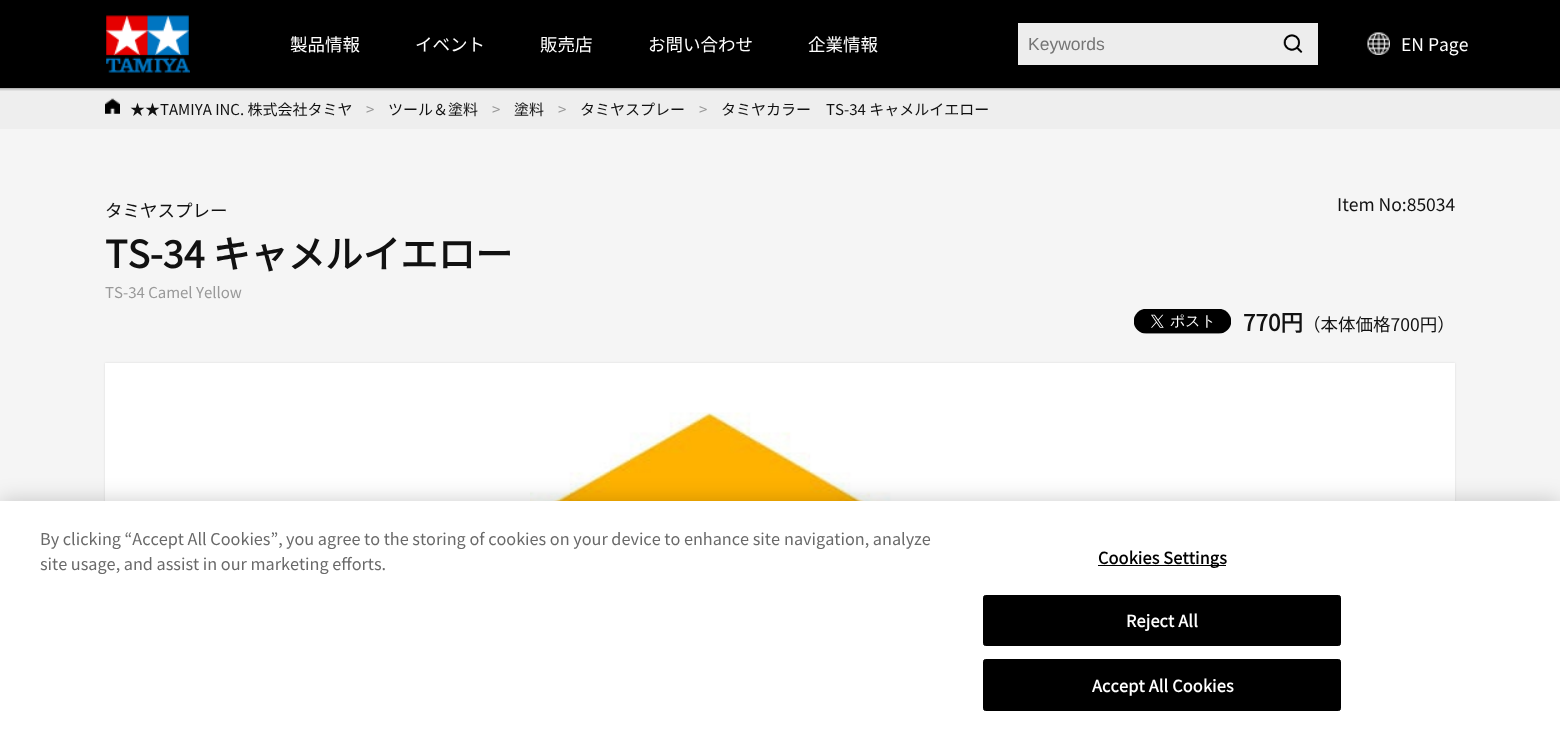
<!DOCTYPE html>
<meta charset="utf-8">
<style>body { margin: 0 } canvas { display: block }</style>
<canvas id="canvas" width="1560" height="736"></canvas>
<img id="img1" src="images/1.png" hidden>
<img id="img2" src="images/2.png" hidden>
<img id="img3" src="images/3.png" hidden>
<img id="img4" src="images/4.png" hidden>
<img id="img5" src="images/5.png" hidden>
<img id="img6" src="images/6.png" hidden>
<img id="img7" src="images/7.png" hidden>
<script>
window.onload = function () {
    const canvas = document.getElementById('canvas');
    const context = canvas.getContext('2d');
    context.miterLimit = 4;
    context.fontKerning = 'none';

    context.fillStyle = 'rgb(245, 245, 245)';
    context.fillRect(0, 0, 1560, 736);
    context.fillStyle = 'rgb(0, 0, 0)';
    context.fillRect(0, 0, 1560, 88);
    context.drawImage(document.getElementById('img1'), 106, 15, 84, 58);
    context.fillStyle = 'rgb(237, 237, 237)';
    context.fillRect(1018, 23, 300, 42);
    context.drawImage(document.getElementById('img2'), 1283, 34, 20, 19);
    context.drawImage(document.getElementById('img3'), 1367, 32, 23, 23);
    context.fillStyle = 'rgb(238, 238, 238)';
    context.fillRect(0, 88, 1560, 41);
    context.drawImage(document.getElementById('img4'), 0, 88, 1560, 3);
    context.drawImage(document.getElementById('img5'), 105, 98, 15, 16);
    context.drawImage(document.getElementById('img6'), 1134, 309, 97, 25);
    context.fillStyle = 'rgba(0, 0, 0, 0.1)';
    context.filter = 'blur(1px)';
    context.beginPath();
    context.rect(105, 363, 1350, 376);
    context.fill();
    context.filter = 'none';
    context.fillStyle = 'rgb(255, 255, 255)';
    context.fillRect(105, 363, 1350, 138);
    context.drawImage(document.getElementById('img7'), 530, 412, 500, 89);
    context.fillStyle = 'rgba(0, 0, 0, 0.2)';
    context.filter = 'blur(11px)';
    context.beginPath();
    context.rect(0, 501, 1560, 235);
    context.fill();
    context.filter = 'none';
    context.fillStyle = 'rgb(255, 255, 255)';
    context.fillRect(0, 501, 1560, 235);
    context.fillStyle = 'rgb(0, 0, 0)';
    context.fillRect(1098, 565, 128, 1);
    context.beginPath();
    context.roundRect(983.5, 595.5, 357, 50, 2);
    context.fill();
    context.strokeStyle = 'rgb(0, 0, 0)';
    context.stroke();
    context.beginPath();
    context.roundRect(983.5, 659.5, 357, 51, 2);
    context.fill();
    context.stroke();
    context.font = '100 17.5px Noto Sans JP';
    context.fillStyle = 'rgb(255, 255, 255)';
    context.fillText('製品情報', 290, 51);
    context.fillText('イベント', 415, 51);
    context.fillText('販売店', 540, 51);
    context.fillText('お問い合わせ', 648, 51);
    context.fillText('企業情報', 808, 51);
    context.font = '17.5px Liberation Sans';
    context.fillStyle = 'rgb(117, 117, 117)';
    context.fillText('Keywords', 1028, 50);
    context.font = '100 17.5px Noto Sans JP';
    context.fillStyle = 'rgb(255, 255, 255)';
    context.fillText('EN Page', 1401, 51);
    context.font = '100 15px Noto Sans JP';
    context.fillStyle = 'rgb(17, 17, 17)';
    context.fillText('★★TAMIYA INC. 株式会社タミヤ', 130, 115);
    context.fillStyle = 'rgb(153, 153, 153)';
    context.fillText('>', 366, 115);
    context.fillStyle = 'rgb(17, 17, 17)';
    context.fillText('ツール＆塗料', 388, 115);
    context.fillStyle = 'rgb(153, 153, 153)';
    context.fillText('>', 492, 115);
    context.fillStyle = 'rgb(17, 17, 17)';
    context.fillText('塗料', 514, 115);
    context.fillStyle = 'rgb(153, 153, 153)';
    context.fillText('>', 558, 115);
    context.fillStyle = 'rgb(17, 17, 17)';
    context.fillText('タミヤスプレー', 580, 115);
    context.fillStyle = 'rgb(153, 153, 153)';
    context.fillText('>', 699, 115);
    context.fillStyle = 'rgb(17, 17, 17)';
    context.fillText('タミヤカラー　TS-34 キャメルイエロー', 721, 115);
    context.font = '100 17.5px Noto Sans JP';
    context.fillText('タミヤスプレー', 105, 217);
    context.fillText('Item No:85034', 1337, 211);
    context.font = 'bold 37.5px Noto Sans JP';
    context.fillText('TS-34 キャメルイエロー', 105, 268);
    context.font = '100 15px Noto Sans JP';
    context.fillStyle = 'rgb(153, 153, 153)';
    context.fillText('TS-34 Camel Yellow', 105, 298);
    context.font = 'bold 22.5px Noto Sans JP';
    context.fillStyle = 'rgb(17, 17, 17)';
    context.fillText('770円', 1243, 331);
    context.font = '100 17.5px Noto Sans JP';
    context.fillText('（本体価格700円）', 1303, 331);
    context.font = '100 16.25px Noto Sans JP';
    context.fillStyle = 'rgb(105, 105, 105)';
    context.fillText('By clicking “Accept All Cookies”,', 40, 545);
    context.fillText('you agree to the storing of cookies on your device to enhance site', 286, 545);
    context.fillText('navigation, analyze', 784, 545);
    context.fillText('site usage, and assist in our marketing efforts.', 40, 570);
    context.letterSpacing = '0.2px';
    context.font = 'bold 16.25px Noto Sans JP';
    context.fillStyle = 'rgb(0, 0, 0)';
    context.fillText('Cookies Settings', 1098, 564);
    context.fillStyle = 'rgb(255, 255, 255)';
    context.fillText('Reject All', 1126, 627);
    context.fillText('Accept All Cookies', 1092, 692);
};
</script>
